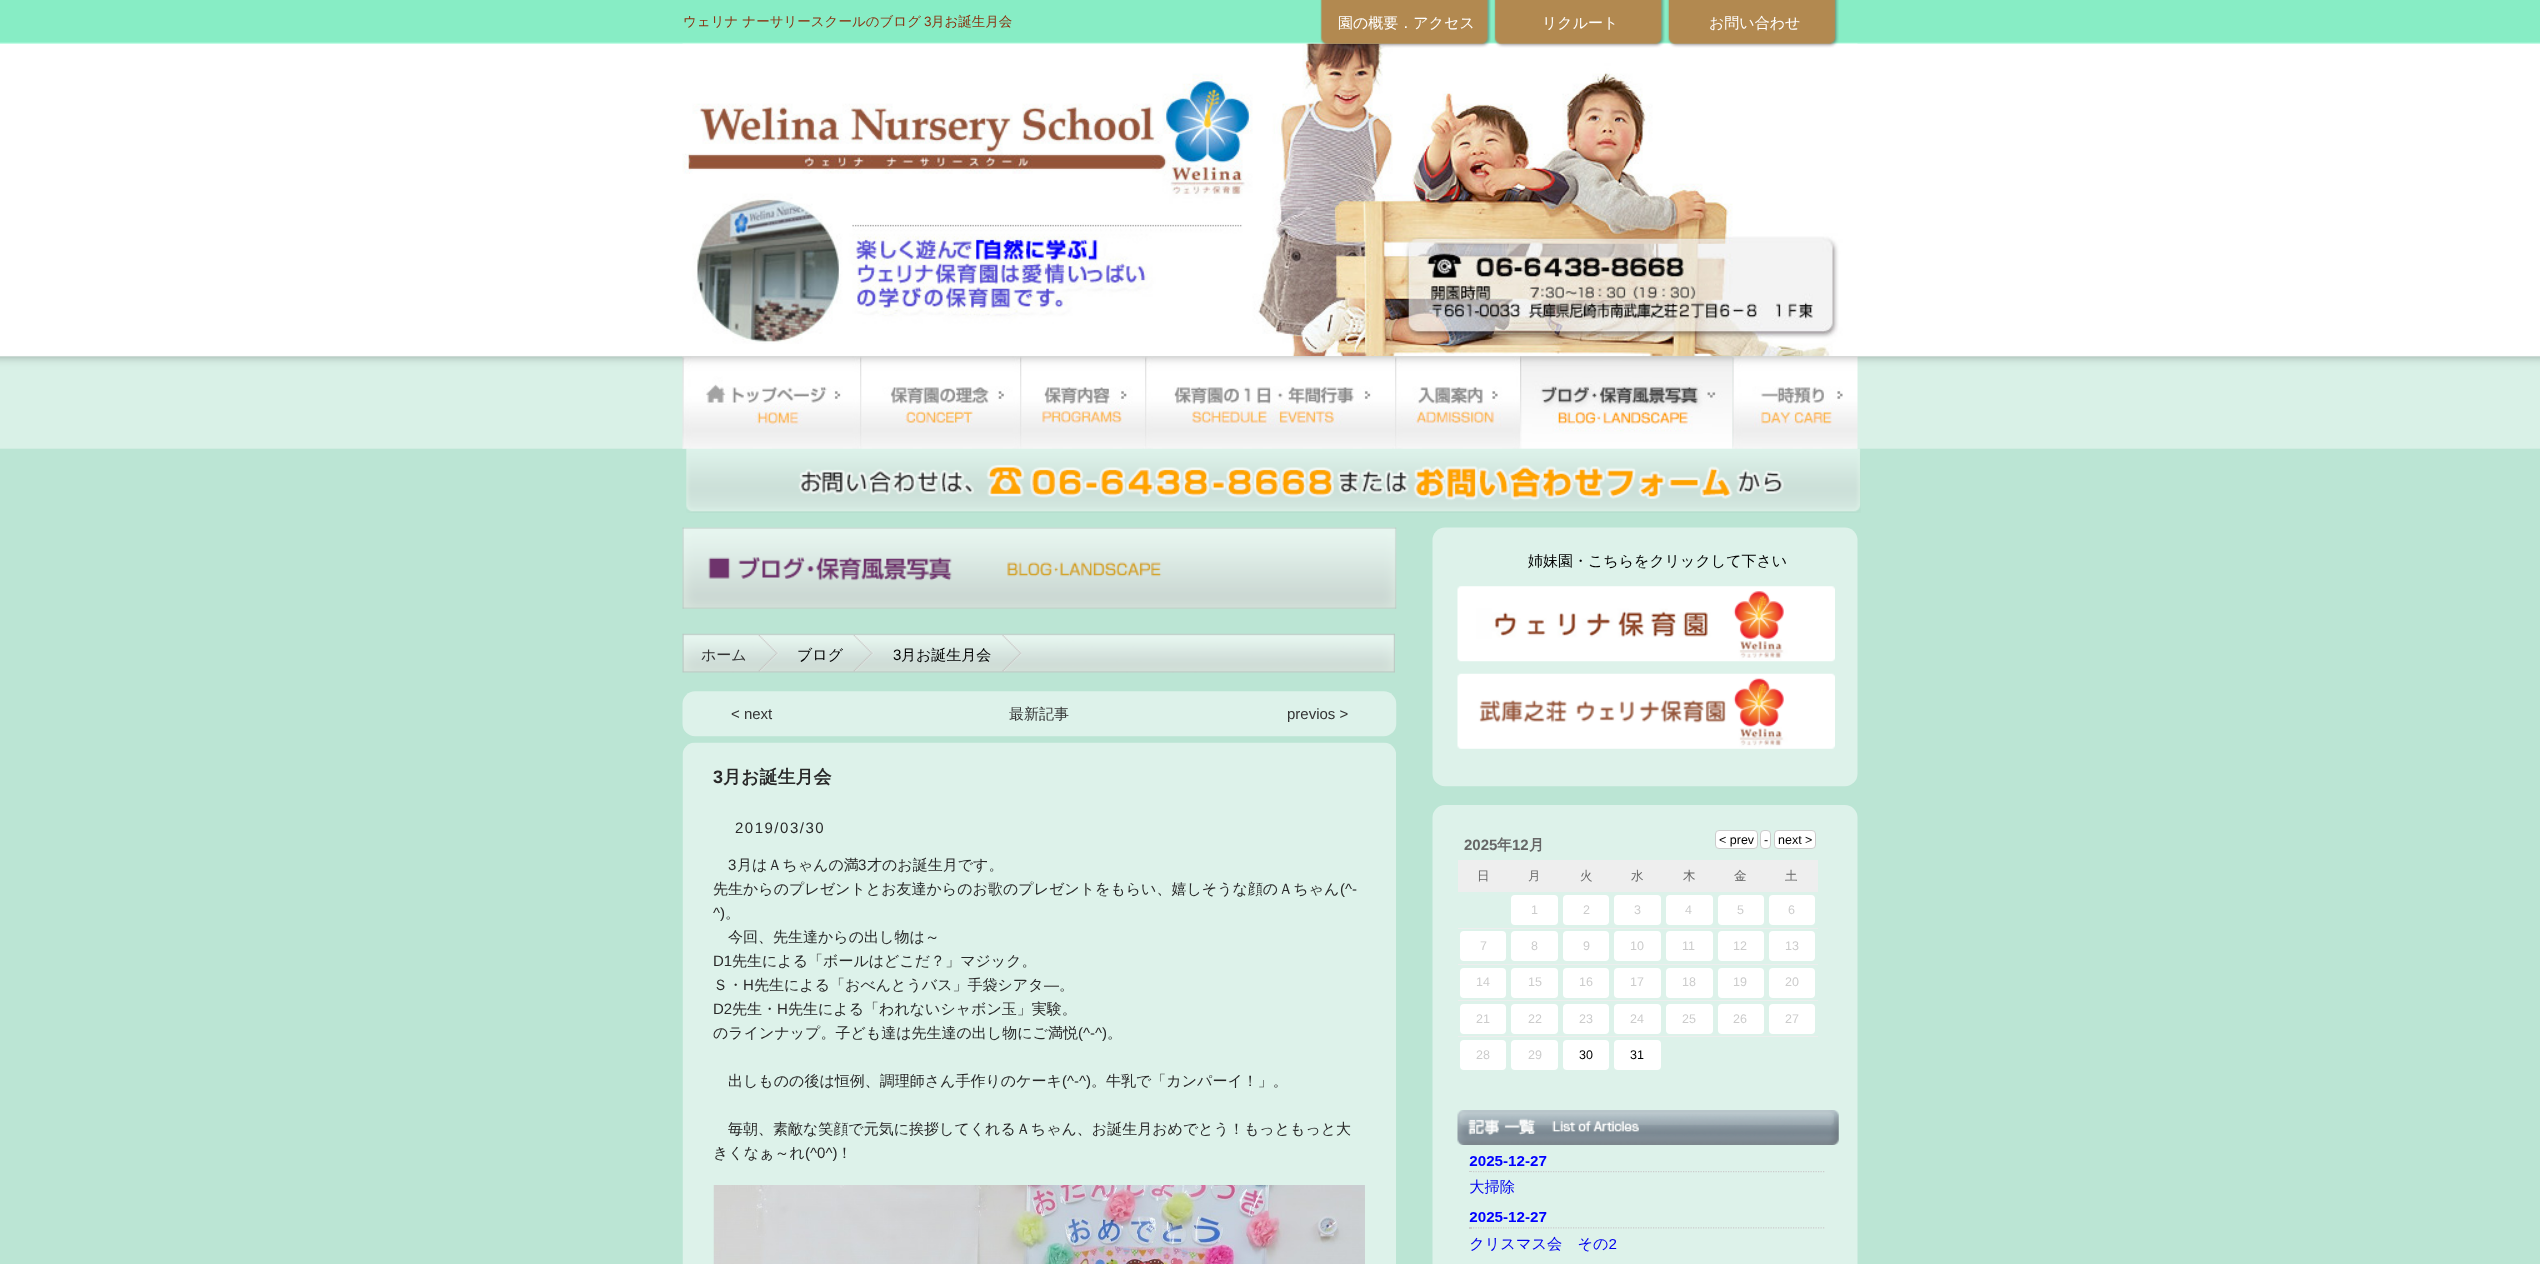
<!DOCTYPE html>
<meta charset="utf-8">
<style>body { margin: 0 } canvas { display: block }</style>
<canvas id="canvas" width="2540" height="1264"></canvas>
<img id="img1" src="images/1.png" hidden>
<img id="img2" src="images/5.png" hidden>
<img id="img3" src="images/2.png" hidden>
<img id="img4" src="images/3.png" hidden>
<img id="img5" src="images/4.png" hidden>
<img id="img6" src="images/6.png" hidden>
<img id="img7" src="images/7.png" hidden>
<img id="img8" src="images/8.png" hidden>
<img id="img9" src="images/9.png" hidden>
<img id="img10" src="images/10.png" hidden>
<img id="img11" src="images/11.png" hidden>
<img id="img12" src="images/12.png" hidden>
<img id="img13" src="images/13.png" hidden>
<img id="img14" src="images/14.png" hidden>
<img id="img15" src="images/15.png" hidden>
<img id="img16" src="images/16.png" hidden>
<img id="img17" src="images/17.png" hidden>
<img id="img18" src="images/18.png" hidden>
<img id="img19" src="images/19.png" hidden>
<img id="img20" src="images/20.png" hidden>
<img id="img21" src="images/21.png" hidden>
<img id="img22" src="images/22.png" hidden>
<img id="img23" src="images/23.png" hidden>
<img id="img24" src="images/24.png" hidden>
<img id="img25" src="images/25.png" hidden>
<img id="img26" src="images/26.png" hidden>
<img id="img27" src="images/27.png" hidden>
<script>
window.onload = function () {
    const canvas = document.getElementById('canvas');
    const context = canvas.getContext('2d');
    context.miterLimit = 4;
    context.fontKerning = 'normal';

    context.fillStyle = 'rgb(187, 229, 212)';
    context.fillRect(0, 0, 2540, 1264);
    context.drawImage(document.getElementById('img1'), 0, 0, 2540, 449);
    context.drawImage(document.getElementById('img2'), 682, 43, 1176, 314);
    context.drawImage(document.getElementById('img3'), 1320, 0, 171, 48);
    context.drawImage(document.getElementById('img4'), 1494, 0, 171, 48);
    context.drawImage(document.getElementById('img5'), 1667, 0, 172, 48);
    context.drawImage(document.getElementById('img6'), 682, 356, 178, 93);
    context.drawImage(document.getElementById('img7'), 860, 356, 160, 93);
    context.drawImage(document.getElementById('img8'), 1020, 356, 125, 93);
    context.drawImage(document.getElementById('img9'), 1145, 356, 250, 93);
    context.drawImage(document.getElementById('img10'), 1395, 356, 125, 93);
    context.drawImage(document.getElementById('img11'), 1520, 356, 213, 93);
    context.drawImage(document.getElementById('img12'), 1732, 356, 126, 93);
    context.drawImage(document.getElementById('img13'), 686, 448, 1175, 65);
    context.drawImage(document.getElementById('img14'), 1432, 527, 426, 260);
    context.drawImage(document.getElementById('img15'), 1457, 586, 378, 76);
    context.drawImage(document.getElementById('img16'), 1457, 673, 378, 76);
    context.drawImage(document.getElementById('img17'), 682, 527, 715, 82);
    context.drawImage(document.getElementById('img18'), 682, 633, 713, 40);
    context.drawImage(document.getElementById('img19'), 758, 635, 21, 37);
    context.drawImage(document.getElementById('img20'), 853, 635, 21, 37);
    context.drawImage(document.getElementById('img21'), 1002, 635, 20, 37);
    context.drawImage(document.getElementById('img22'), 682, 691, 715, 46);
    context.drawImage(document.getElementById('img23'), 682, 742, 714, 522);
    context.drawImage(document.getElementById('img24'), 713, 1185, 652, 79);
    context.drawImage(document.getElementById('img25'), 1432, 805, 426, 459);
    context.fillStyle = 'rgb(255, 255, 255)';
    context.beginPath();
    context.roundRect(1715.5, 830.5, 42, 18, 3.5);
    context.fill();
    context.strokeStyle = 'rgb(204, 204, 204)';
    context.stroke();
    context.beginPath();
    context.roundRect(1760.5, 830.5, 10, 18, 3.5);
    context.fill();
    context.stroke();
    context.beginPath();
    context.roundRect(1774.5, 830.5, 41, 18, 3.5);
    context.fill();
    context.stroke();
    context.fillStyle = 'rgb(238, 238, 238)';
    context.fillRect(1458, 860, 360, 31);
    context.fillRect(1458, 891, 360, 1);
    context.fillStyle = 'rgb(255, 255, 255)';
    context.beginPath();
    context.roundRect(1511, 895, 47, 30, 4);
    context.fill();
    context.beginPath();
    context.roundRect(1563, 895, 46, 30, 4);
    context.fill();
    context.beginPath();
    context.roundRect(1614, 895, 47, 30, 4);
    context.fill();
    context.beginPath();
    context.roundRect(1666, 895, 47, 30, 4);
    context.fill();
    context.beginPath();
    context.roundRect(1718, 895, 46, 30, 4);
    context.fill();
    context.beginPath();
    context.roundRect(1769, 895, 46, 30, 4);
    context.fill();
    context.fillStyle = 'rgb(238, 238, 238)';
    context.fillRect(1458, 928, 360, 1);
    context.fillStyle = 'rgb(255, 255, 255)';
    context.beginPath();
    context.roundRect(1460, 931, 46, 30, 4);
    context.fill();
    context.beginPath();
    context.roundRect(1511, 931, 47, 30, 4);
    context.fill();
    context.beginPath();
    context.roundRect(1563, 931, 46, 30, 4);
    context.fill();
    context.beginPath();
    context.roundRect(1614, 931, 47, 30, 4);
    context.fill();
    context.beginPath();
    context.roundRect(1666, 931, 47, 30, 4);
    context.fill();
    context.beginPath();
    context.roundRect(1718, 931, 46, 30, 4);
    context.fill();
    context.beginPath();
    context.roundRect(1769, 931, 46, 30, 4);
    context.fill();
    context.fillStyle = 'rgb(238, 238, 238)';
    context.fillRect(1458, 964, 360, 1);
    context.fillStyle = 'rgb(255, 255, 255)';
    context.beginPath();
    context.roundRect(1460, 968, 46, 30, 4);
    context.fill();
    context.beginPath();
    context.roundRect(1511, 968, 47, 30, 4);
    context.fill();
    context.beginPath();
    context.roundRect(1563, 968, 46, 30, 4);
    context.fill();
    context.beginPath();
    context.roundRect(1614, 968, 47, 30, 4);
    context.fill();
    context.beginPath();
    context.roundRect(1666, 968, 47, 30, 4);
    context.fill();
    context.beginPath();
    context.roundRect(1718, 968, 46, 30, 4);
    context.fill();
    context.beginPath();
    context.roundRect(1769, 968, 46, 30, 4);
    context.fill();
    context.fillStyle = 'rgb(238, 238, 238)';
    context.fillRect(1458, 1000, 360, 1);
    context.fillStyle = 'rgb(255, 255, 255)';
    context.beginPath();
    context.roundRect(1460, 1004, 46, 30, 4);
    context.fill();
    context.beginPath();
    context.roundRect(1511, 1004, 47, 30, 4);
    context.fill();
    context.beginPath();
    context.roundRect(1563, 1004, 46, 30, 4);
    context.fill();
    context.beginPath();
    context.roundRect(1614, 1004, 47, 30, 4);
    context.fill();
    context.beginPath();
    context.roundRect(1666, 1004, 47, 30, 4);
    context.fill();
    context.beginPath();
    context.roundRect(1718, 1004, 46, 30, 4);
    context.fill();
    context.beginPath();
    context.roundRect(1769, 1004, 46, 30, 4);
    context.fill();
    context.fillStyle = 'rgb(238, 238, 238)';
    context.fillRect(1458, 1036, 360, 1);
    context.fillStyle = 'rgb(255, 255, 255)';
    context.beginPath();
    context.roundRect(1460, 1040, 46, 30, 4);
    context.fill();
    context.beginPath();
    context.roundRect(1511, 1040, 47, 30, 4);
    context.fill();
    context.beginPath();
    context.roundRect(1563, 1040, 46, 30, 4);
    context.fill();
    context.beginPath();
    context.roundRect(1614, 1040, 47, 30, 4);
    context.fill();
    context.drawImage(document.getElementById('img26'), 1457, 1110, 382, 35);
    context.drawImage(document.getElementById('img27'), 1469, 1156, 356, 96);
    context.font = '500 13.5px WenQuanYi Zen Hei';
    context.fillStyle = 'rgb(138, 50, 17)';
    context.fillText('ウェリナ ナーサリースクールのブログ', 683, 26);
    context.font = '13.5px Liberation Sans';
    context.fillText('3', 924, 26);
    context.font = '500 13.5px WenQuanYi Zen Hei';
    context.fillText('月お誕生月会', 931, 26);
    context.font = '500 15px WenQuanYi Zen Hei';
    context.fillStyle = 'rgb(255, 255, 255)';
    context.fillText('園の概要．アクセス', 1338, 28);
    context.fillText('リクルート', 1542, 28);
    context.fillText('お問い合わせ', 1709, 28);
    context.fillStyle = 'rgb(0, 0, 0)';
    context.fillText('姉妹園・こちらをクリックして下さい', 1528, 566);
    context.fillStyle = 'rgb(51, 51, 51)';
    context.fillText('ホーム', 701, 660);
    context.fillStyle = 'rgb(0, 0, 0)';
    context.fillText('ブログ', 797, 660);
    context.font = '15px Liberation Sans';
    context.fillText('3', 893, 660);
    context.font = '500 15px WenQuanYi Zen Hei';
    context.fillText('月お誕生月会', 901, 660);
    context.font = '15px Liberation Sans';
    context.fillStyle = 'rgb(51, 51, 51)';
    context.fillText('< next', 731, 719);
    context.font = '500 15px WenQuanYi Zen Hei';
    context.fillText('最新記事', 1009, 719);
    context.font = '15px Liberation Sans';
    context.fillText('previos >', 1287, 719);
    context.font = 'bold 18px Liberation Sans';
    context.fillStyle = 'rgb(41, 41, 41)';
    context.fillText('3', 713, 783);
    context.font = 'bold 18px WenQuanYi Zen Hei';
    context.fillText('月お誕生月会', 723, 783);
    context.letterSpacing = '1.5px';
    context.font = '15px Liberation Sans';
    context.fillText('2019/03/30', 735, 833);
    context.letterSpacing = '0px';
    context.fillText('3', 728, 870);
    context.font = '500 15px WenQuanYi Zen Hei';
    context.fillText('月はＡちゃんの満', 737, 870);
    context.font = '15px Liberation Sans';
    context.fillText('3', 858, 870);
    context.font = '500 15px WenQuanYi Zen Hei';
    context.fillText('才のお誕生月です。', 867, 870);
    context.fillText('先生からのプレゼントとお友達からのお歌のプレゼントをもらい、嬉しそうな顔のＡちゃん', 713, 894);
    context.font = '15px Liberation Sans';
    context.fillText('(^-', 1340, 894);
    context.fillText('^)', 713, 918);
    context.font = '500 15px WenQuanYi Zen Hei';
    context.fillText('。', 725, 918);
    context.fillText('今回、先生達からの出し物は～', 728, 942);
    context.font = '15px Liberation Sans';
    context.fillText('D1', 713, 966);
    context.font = '500 15px WenQuanYi Zen Hei';
    context.fillText('先生による「ボールはどこだ？」マジック。', 732, 966);
    context.fillText('Ｓ・', 713, 990);
    context.font = '15px Liberation Sans';
    context.fillText('H', 743, 990);
    context.font = '500 15px WenQuanYi Zen Hei';
    context.fillText('先生による「おべんとうバス」手袋シアタ', 754, 990);
    context.font = '15px Liberation Sans';
    context.fillText('―', 1044, 990);
    context.font = '500 15px WenQuanYi Zen Hei';
    context.fillText('。', 1059, 990);
    context.font = '15px Liberation Sans';
    context.fillText('D2', 713, 1014);
    context.font = '500 15px WenQuanYi Zen Hei';
    context.fillText('先生・', 732, 1014);
    context.font = '15px Liberation Sans';
    context.fillText('H', 777, 1014);
    context.font = '500 15px WenQuanYi Zen Hei';
    context.fillText('先生による「われないシャボン玉」実験。', 788, 1014);
    context.fillText('のラインナップ。子ども達は先生達の出し物にご満悦', 713, 1038);
    context.font = '15px Liberation Sans';
    context.fillText('(^-^)', 1078, 1038);
    context.font = '500 15px WenQuanYi Zen Hei';
    context.fillText('。', 1107, 1038);
    context.fillText('出しものの後は恒例、調理師さん手作りのケーキ', 728, 1086);
    context.font = '15px Liberation Sans';
    context.fillText('(^-^)', 1062, 1086);
    context.font = '500 15px WenQuanYi Zen Hei';
    context.fillText('。牛乳で「カンパーイ！」。', 1091, 1086);
    context.fillText('毎朝、素敵な笑顔で元気に挨拶してくれるＡちゃん、お誕生月おめでとう！もっともっと大', 728, 1134);
    context.fillText('きくなぁ～れ', 713, 1158);
    context.font = '15px Liberation Sans';
    context.fillText('(^0^)', 805, 1158);
    context.font = '500 15px WenQuanYi Zen Hei';
    context.fillText('！', 837, 1158);
    context.font = 'bold 15px Liberation Sans';
    context.fillStyle = 'rgb(102, 102, 102)';
    context.fillText('2025', 1464, 850);
    context.font = 'bold 15px WenQuanYi Zen Hei';
    context.fillText('年', 1497, 850);
    context.font = 'bold 15px Liberation Sans';
    context.fillText('12', 1512, 850);
    context.font = 'bold 15px WenQuanYi Zen Hei';
    context.fillText('月', 1529, 850);
    context.font = '12.5px Liberation Sans';
    context.fillStyle = 'rgb(0, 0, 0)';
    context.fillText('< prev', 1719, 844);
    context.fillText('-', 1764, 844);
    context.fillText('next >', 1778, 844);
    context.font = '500 12.5px WenQuanYi Zen Hei';
    context.fillStyle = 'rgb(102, 102, 102)';
    context.fillText('日', 1477, 880);
    context.fillText('月', 1528, 880);
    context.fillText('火', 1580, 880);
    context.fillText('水', 1631, 880);
    context.fillText('木', 1683, 880);
    context.fillText('金', 1734, 880);
    context.fillText('土', 1785, 880);
    context.font = '12.5px Liberation Sans';
    context.fillStyle = 'rgb(204, 204, 204)';
    context.fillText('1', 1531, 914);
    context.fillText('2', 1583, 914);
    context.fillText('3', 1634, 914);
    context.fillText('4', 1685, 914);
    context.fillText('5', 1737, 914);
    context.fillText('6', 1788, 914);
    context.fillText('7', 1480, 950);
    context.fillText('8', 1531, 950);
    context.fillText('9', 1583, 950);
    context.fillText('10', 1630, 950);
    context.fillText('11', 1682, 950);
    context.fillText('12', 1733, 950);
    context.fillText('13', 1785, 950);
    context.fillText('14', 1476, 986);
    context.fillText('15', 1528, 986);
    context.fillText('16', 1579, 986);
    context.fillText('17', 1630, 986);
    context.fillText('18', 1682, 986);
    context.fillText('19', 1733, 986);
    context.fillText('20', 1785, 986);
    context.fillText('21', 1476, 1023);
    context.fillText('22', 1528, 1023);
    context.fillText('23', 1579, 1023);
    context.fillText('24', 1630, 1023);
    context.fillText('25', 1682, 1023);
    context.fillText('26', 1733, 1023);
    context.fillText('27', 1785, 1023);
    context.fillText('28', 1476, 1059);
    context.fillText('29', 1528, 1059);
    context.fillStyle = 'rgb(0, 0, 0)';
    context.fillText('30', 1579, 1059);
    context.fillText('31', 1630, 1059);
};
</script>
